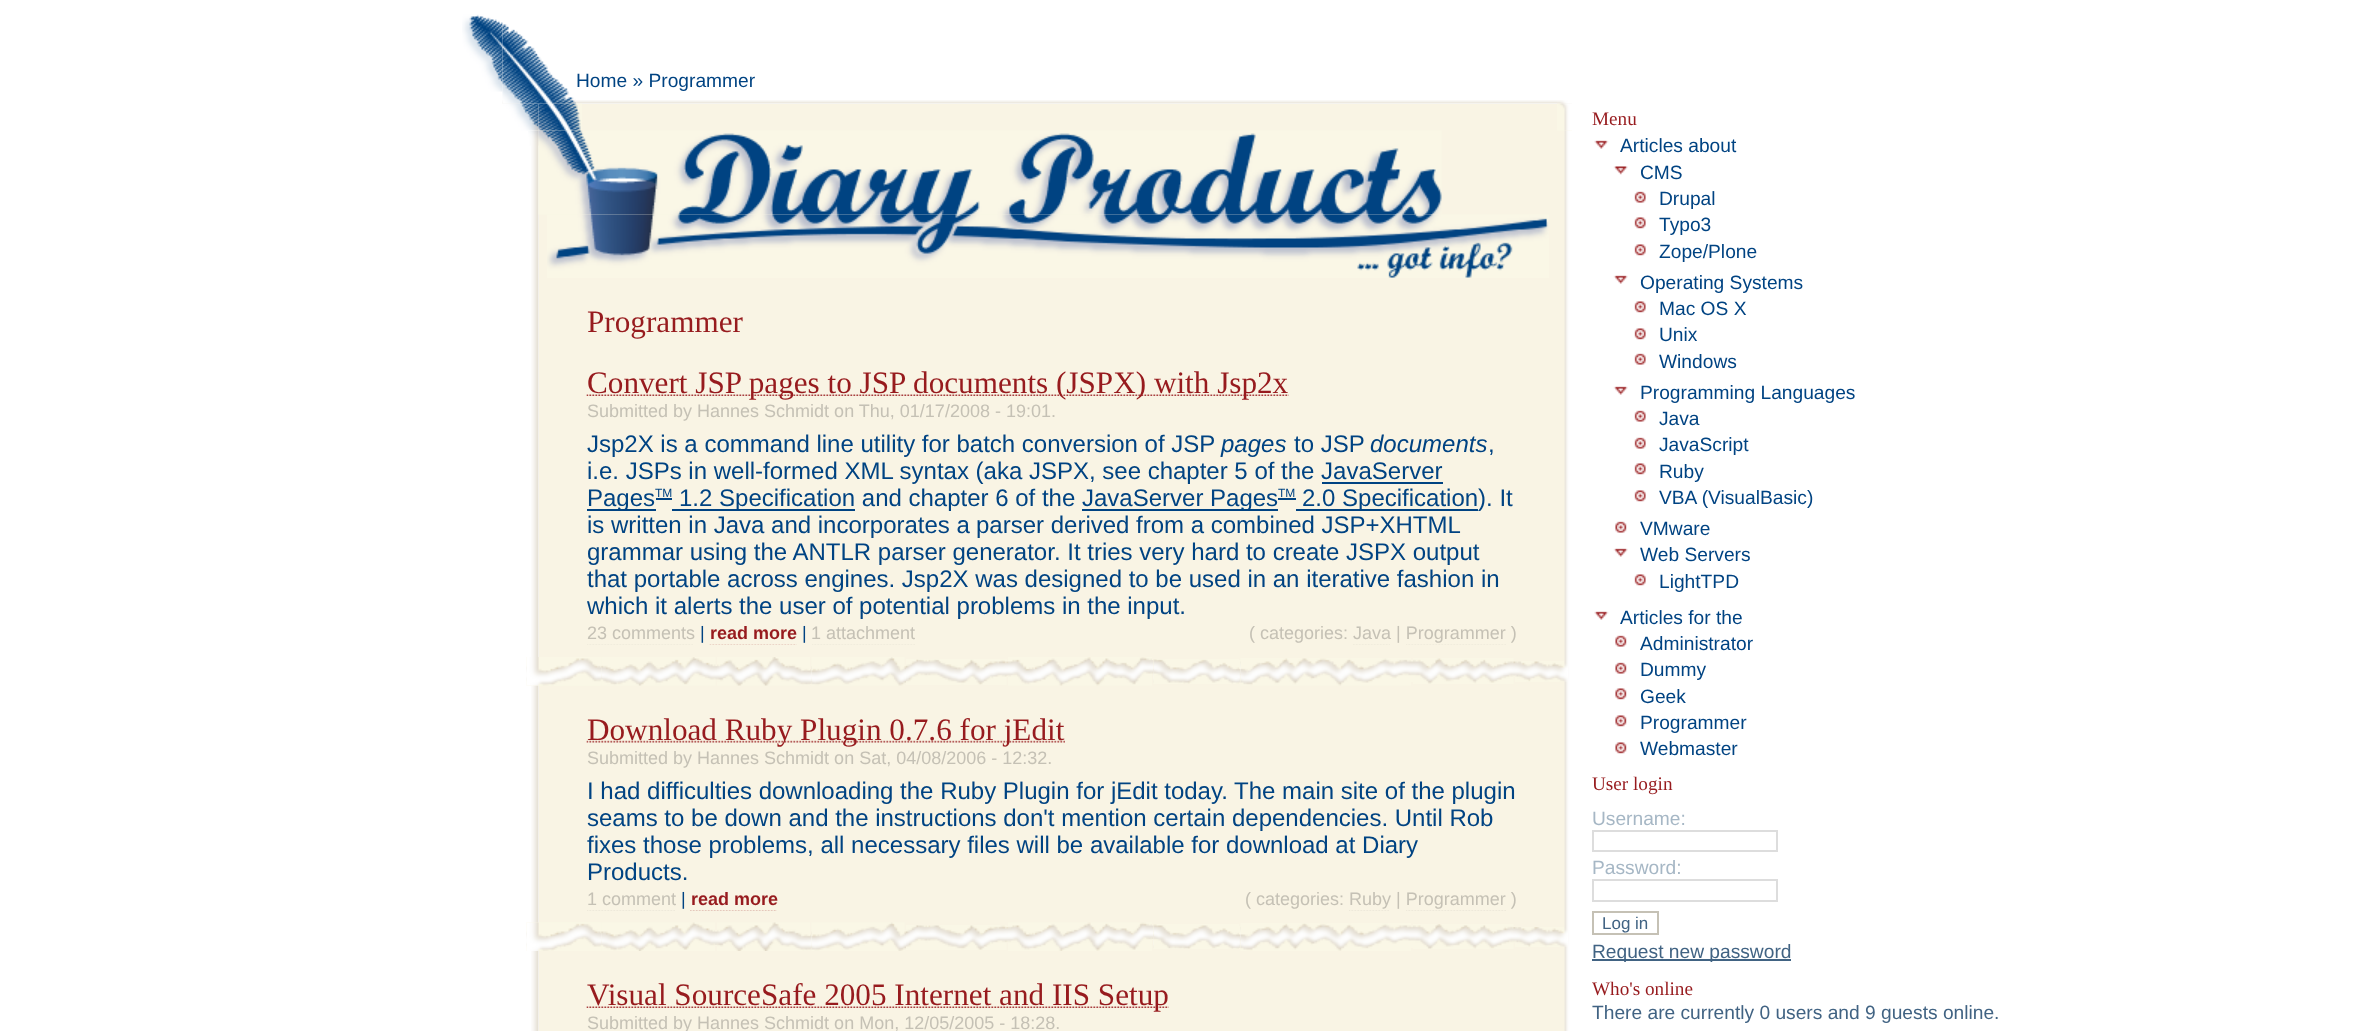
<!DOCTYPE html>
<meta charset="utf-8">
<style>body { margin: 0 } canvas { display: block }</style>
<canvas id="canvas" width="2372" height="1031"></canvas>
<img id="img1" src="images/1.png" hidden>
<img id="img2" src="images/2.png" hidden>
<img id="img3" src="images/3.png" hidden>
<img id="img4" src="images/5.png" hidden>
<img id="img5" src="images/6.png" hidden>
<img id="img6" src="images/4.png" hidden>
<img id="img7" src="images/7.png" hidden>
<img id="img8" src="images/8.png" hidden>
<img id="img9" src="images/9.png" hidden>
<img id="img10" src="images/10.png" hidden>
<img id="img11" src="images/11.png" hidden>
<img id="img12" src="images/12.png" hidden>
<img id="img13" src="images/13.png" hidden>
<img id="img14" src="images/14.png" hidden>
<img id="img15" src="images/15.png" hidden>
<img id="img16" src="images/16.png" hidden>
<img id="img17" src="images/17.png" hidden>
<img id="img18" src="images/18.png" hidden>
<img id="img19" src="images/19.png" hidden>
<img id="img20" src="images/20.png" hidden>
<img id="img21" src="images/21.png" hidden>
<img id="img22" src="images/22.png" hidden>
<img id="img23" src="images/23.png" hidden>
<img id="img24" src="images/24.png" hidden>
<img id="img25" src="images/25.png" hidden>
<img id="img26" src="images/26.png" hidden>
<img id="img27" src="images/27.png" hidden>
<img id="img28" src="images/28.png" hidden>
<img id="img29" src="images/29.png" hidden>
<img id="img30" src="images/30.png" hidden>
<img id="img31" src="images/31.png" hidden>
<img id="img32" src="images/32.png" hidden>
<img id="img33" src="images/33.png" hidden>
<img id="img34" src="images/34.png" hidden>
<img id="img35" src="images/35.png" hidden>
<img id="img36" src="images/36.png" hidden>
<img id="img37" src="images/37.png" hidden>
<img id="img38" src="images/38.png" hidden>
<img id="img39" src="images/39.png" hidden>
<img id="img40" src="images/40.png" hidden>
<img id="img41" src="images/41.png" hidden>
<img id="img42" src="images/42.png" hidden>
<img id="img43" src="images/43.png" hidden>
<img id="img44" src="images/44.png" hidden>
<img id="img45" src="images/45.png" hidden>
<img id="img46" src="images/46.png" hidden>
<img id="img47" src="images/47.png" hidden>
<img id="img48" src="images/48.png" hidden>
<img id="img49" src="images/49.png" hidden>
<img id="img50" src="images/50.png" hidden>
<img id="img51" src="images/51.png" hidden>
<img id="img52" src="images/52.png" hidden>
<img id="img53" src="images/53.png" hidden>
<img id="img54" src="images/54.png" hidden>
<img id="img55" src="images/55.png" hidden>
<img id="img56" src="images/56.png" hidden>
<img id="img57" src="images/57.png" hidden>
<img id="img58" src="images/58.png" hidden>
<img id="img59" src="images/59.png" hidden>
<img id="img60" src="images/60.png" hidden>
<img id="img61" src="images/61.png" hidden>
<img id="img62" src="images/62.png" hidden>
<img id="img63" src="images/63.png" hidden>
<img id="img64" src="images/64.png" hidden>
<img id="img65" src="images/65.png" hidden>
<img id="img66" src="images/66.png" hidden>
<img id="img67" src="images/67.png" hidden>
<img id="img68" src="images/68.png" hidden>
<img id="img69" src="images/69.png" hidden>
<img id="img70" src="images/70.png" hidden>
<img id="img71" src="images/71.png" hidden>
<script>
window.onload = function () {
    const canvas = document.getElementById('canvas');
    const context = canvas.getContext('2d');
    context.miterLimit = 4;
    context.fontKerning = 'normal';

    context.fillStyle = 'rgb(255, 255, 255)';
    context.fillRect(0, 0, 2372, 1031);
    context.drawImage(document.getElementById('img1'), 462, 14, 41, 78);
    context.drawImage(document.getElementById('img2'), 502, 100, 1070, 4);
    context.drawImage(document.getElementById('img3'), 1557, 100, 15, 4);
    context.drawImage(document.getElementById('img4'), 503, 103, 36, 28);
    context.fillStyle = 'rgb(249, 244, 228)';
    context.fillRect(539, 104, 1033, 27);
    context.drawImage(document.getElementById('img5'), 538, 103, 44, 28);
    context.drawImage(document.getElementById('img6'), 502, 24, 74, 80);
    context.drawImage(document.getElementById('img7'), 1557, 103, 15, 28);
    context.drawImage(document.getElementById('img8'), 531, 130, 8, 149);
    context.drawImage(document.getElementById('img9'), 528, 130, 11, 16);
    context.fillRect(539, 131, 1025, 900);
    context.drawImage(document.getElementById('img10'), 1564, 130, 8, 149);
    context.drawImage(document.getElementById('img11'), 538, 130, 904, 85);
    context.drawImage(document.getElementById('img12'), 547, 214, 1002, 64);
    context.drawImage(document.getElementById('img13'), 531, 279, 8, 752);
    context.drawImage(document.getElementById('img14'), 1564, 279, 8, 752);
    context.drawImage(document.getElementById('img15'), 586, 394, 703, 2);
    context.fillStyle = 'rgb(0, 67, 130)';
    context.fillRect(587, 509, 69, 2);
    context.fillRect(656, 498, 16, 2);
    context.fillRect(1322, 482, 121, 2);
    context.fillRect(672, 509, 183, 2);
    context.fillRect(1082, 509, 196, 2);
    context.fillRect(1278, 498, 18, 2);
    context.fillRect(1296, 509, 182, 2);
    context.drawImage(document.getElementById('img16'), 587, 644, 106, 1);
    context.drawImage(document.getElementById('img17'), 709, 644, 88, 1);
    context.drawImage(document.getElementById('img18'), 812, 644, 103, 1);
    context.drawImage(document.getElementById('img19'), 1353, 644, 37, 1);
    context.drawImage(document.getElementById('img20'), 1406, 644, 100, 1);
    context.drawImage(document.getElementById('img21'), 526, 657, 76, 29);
    context.drawImage(document.getElementById('img22'), 526, 657, 74, 29);
    context.drawImage(document.getElementById('img23'), 601, 666, 116, 14);
    context.drawImage(document.getElementById('img24'), 601, 657, 115, 29);
    context.drawImage(document.getElementById('img25'), 810, 669, 2, 15);
    context.drawImage(document.getElementById('img26'), 717, 657, 93, 29);
    context.drawImage(document.getElementById('img27'), 811, 666, 95, 17);
    context.drawImage(document.getElementById('img28'), 811, 657, 94, 29);
    context.drawImage(document.getElementById('img29'), 1006, 661, 2, 15);
    context.drawImage(document.getElementById('img30'), 906, 659, 101, 26);
    context.drawImage(document.getElementById('img31'), 1152, 660, 2, 14);
    context.drawImage(document.getElementById('img32'), 1008, 657, 144, 29);
    context.drawImage(document.getElementById('img33'), 1153, 660, 88, 23);
    context.drawImage(document.getElementById('img34'), 1153, 659, 86, 25);
    context.drawImage(document.getElementById('img35'), 1240, 661, 173, 21);
    context.drawImage(document.getElementById('img36'), 1240, 658, 171, 28);
    context.drawImage(document.getElementById('img37'), 1513, 661, 2, 15);
    context.drawImage(document.getElementById('img38'), 1413, 658, 101, 26);
    context.drawImage(document.getElementById('img39'), 1515, 661, 53, 21);
    context.drawImage(document.getElementById('img40'), 586, 740, 479, 3);
    context.drawImage(document.getElementById('img41'), 587, 910, 88, 1);
    context.drawImage(document.getElementById('img42'), 690, 910, 87, 1);
    context.drawImage(document.getElementById('img43'), 1349, 910, 40, 1);
    context.drawImage(document.getElementById('img44'), 1406, 910, 100, 1);
    context.drawImage(document.getElementById('img45'), 526, 922, 76, 29);
    context.drawImage(document.getElementById('img46'), 526, 922, 74, 29);
    context.drawImage(document.getElementById('img47'), 601, 931, 116, 14);
    context.drawImage(document.getElementById('img48'), 601, 922, 114, 29);
    context.drawImage(document.getElementById('img49'), 810, 934, 2, 16);
    context.drawImage(document.getElementById('img50'), 717, 922, 93, 29);
    context.drawImage(document.getElementById('img51'), 811, 931, 95, 18);
    context.drawImage(document.getElementById('img52'), 811, 922, 94, 29);
    context.drawImage(document.getElementById('img53'), 1006, 927, 2, 15);
    context.drawImage(document.getElementById('img54'), 906, 925, 101, 25);
    context.drawImage(document.getElementById('img55'), 1152, 925, 2, 14);
    context.drawImage(document.getElementById('img56'), 1008, 922, 144, 29);
    context.drawImage(document.getElementById('img57'), 1153, 926, 88, 22);
    context.drawImage(document.getElementById('img58'), 1153, 924, 86, 25);
    context.drawImage(document.getElementById('img59'), 1240, 926, 173, 22);
    context.drawImage(document.getElementById('img60'), 1240, 923, 171, 28);
    context.drawImage(document.getElementById('img61'), 1513, 927, 2, 15);
    context.drawImage(document.getElementById('img62'), 1413, 924, 101, 25);
    context.drawImage(document.getElementById('img63'), 1515, 927, 53, 20);
    context.drawImage(document.getElementById('img64'), 586, 1006, 583, 2);
    context.drawImage(document.getElementById('img65'), 1594, 140, 15, 9);
    context.drawImage(document.getElementById('img66'), 1613, 166, 15, 9);
    context.drawImage(document.getElementById('img67'), 1634, 191, 12, 12);
    context.drawImage(document.getElementById('img68'), 1634, 217, 12, 12);
    context.drawImage(document.getElementById('img68'), 1634, 244, 12, 12);
    context.drawImage(document.getElementById('img69'), 1613, 275, 15, 9);
    context.drawImage(document.getElementById('img68'), 1634, 301, 12, 12);
    context.drawImage(document.getElementById('img68'), 1634, 328, 12, 12);
    context.drawImage(document.getElementById('img67'), 1634, 353, 12, 12);
    context.drawImage(document.getElementById('img69'), 1613, 386, 15, 9);
    context.drawImage(document.getElementById('img67'), 1634, 410, 12, 12);
    context.drawImage(document.getElementById('img67'), 1634, 437, 12, 12);
    context.drawImage(document.getElementById('img68'), 1634, 463, 12, 12);
    context.drawImage(document.getElementById('img68'), 1634, 490, 12, 12);
    context.drawImage(document.getElementById('img70'), 1615, 521, 12, 12);
    context.drawImage(document.getElementById('img69'), 1613, 548, 15, 9);
    context.drawImage(document.getElementById('img68'), 1634, 574, 12, 12);
    context.drawImage(document.getElementById('img65'), 1594, 611, 15, 9);
    context.drawImage(document.getElementById('img70'), 1615, 635, 12, 12);
    context.drawImage(document.getElementById('img70'), 1615, 662, 12, 12);
    context.drawImage(document.getElementById('img71'), 1615, 688, 12, 12);
    context.drawImage(document.getElementById('img71'), 1615, 715, 12, 12);
    context.drawImage(document.getElementById('img71'), 1615, 742, 12, 12);
    context.strokeStyle = 'rgb(221, 221, 221)';
    context.lineWidth = 2;
    context.strokeRect(1593, 831, 184, 20);
    context.strokeRect(1593, 880, 184, 21);
    context.strokeStyle = 'rgb(197, 193, 181)';
    context.strokeRect(1593, 912, 65, 22);
    context.fillStyle = 'rgb(65, 99, 131)';
    context.fillRect(1592, 959, 199, 2);
    context.font = '19.2px Liberation Sans';
    context.fillStyle = 'rgb(0, 67, 130)';
    context.fillText('Home » Programmer', 576, 87);
    context.font = '31.2px Liberation Serif';
    context.fillStyle = 'rgb(151, 27, 30)';
    context.fillText('Programmer', 587, 332);
    context.fillText('Convert JSP pages to JSP documents (JSPX) with Jsp2x', 587, 393);
    context.font = '18px Liberation Sans';
    context.fillStyle = 'rgb(197, 193, 181)';
    context.fillText('Submitted by Hannes Schmidt on Thu, 01/17/2008 - 19:01.', 587, 417);
    context.font = '24px Liberation Sans';
    context.fillStyle = 'rgb(0, 67, 130)';
    context.fillText('Jsp2X is a command line utility for batch conversion of JSP', 587, 452);
    context.font = 'italic 24px Liberation Sans';
    context.fillText('pages', 1221, 452);
    context.font = '24px Liberation Sans';
    context.fillText('to JSP', 1294, 452);
    context.font = 'italic 24px Liberation Sans';
    context.fillText('documents', 1370, 452);
    context.font = '24px Liberation Sans';
    context.fillText(',', 1488, 452);
    context.fillText('i.e. JSPs in well-formed XML syntax (aka JSPX, see chapter 5 of the JavaServer', 587, 479);
    context.fillText('Pages', 587, 506);
    context.font = '12px Liberation Sans';
    context.fillText('TM', 655, 497);
    context.font = '24px Liberation Sans';
    context.fillText('1.2 Specification and chapter 6 of the', 679, 506);
    context.fillText('JavaServer Pages', 1082, 506);
    context.font = '12px Liberation Sans';
    context.fillText('TM', 1278, 497);
    context.font = '24px Liberation Sans';
    context.fillText('2.0 Specification). It', 1302, 506);
    context.fillText('is written in Java and incorporates a', 587, 533);
    context.fillText('parser derived from a combined JSP+XHTML', 976, 533);
    context.fillText('grammar using the ANTLR parser generator. It tries very hard to create JSPX output', 587, 560);
    context.fillText('that portable across engines. Jsp2X was designed to be used in an iterative fashion in', 587, 587);
    context.fillText('which it alerts the user of potential problems in the input.', 587, 614);
    context.font = '18px Liberation Sans';
    context.fillStyle = 'rgb(197, 193, 181)';
    context.fillText('23 comments', 587, 639);
    context.fillStyle = 'rgb(0, 67, 130)';
    context.fillText('|', 700, 639);
    context.font = 'bold 18px Liberation Sans';
    context.fillStyle = 'rgb(151, 27, 30)';
    context.fillText('read more', 710, 639);
    context.font = '18px Liberation Sans';
    context.fillStyle = 'rgb(0, 67, 130)';
    context.fillText('|', 802, 639);
    context.fillStyle = 'rgb(197, 193, 181)';
    context.fillText('1 attachment', 811, 639);
    context.fillText('( categories: Java | Programmer )', 1249, 639);
    context.font = '31.2px Liberation Serif';
    context.fillStyle = 'rgb(151, 27, 30)';
    context.fillText('Download Ruby Plugin 0.7.6 for jEdit', 587, 740);
    context.font = '18px Liberation Sans';
    context.fillStyle = 'rgb(197, 193, 181)';
    context.fillText('Submitted by Hannes Schmidt on Sat, 04/08/2006 - 12:32.', 587, 764);
    context.font = '24px Liberation Sans';
    context.fillStyle = 'rgb(0, 67, 130)';
    context.fillText('I had difficulties downloading the Ruby Plugin for jEdit today. The main site of the plugin', 587, 799);
    context.fillText('seams to be down and the instructions don\'t mention certain dependencies. Until Rob', 587, 826);
    context.fillText('fixes those problems, all necessary files will be available for download at Diary', 587, 853);
    context.fillText('Products.', 587, 880);
    context.font = '18px Liberation Sans';
    context.fillStyle = 'rgb(197, 193, 181)';
    context.fillText('1 comment', 587, 905);
    context.fillStyle = 'rgb(0, 67, 130)';
    context.fillText('|', 681, 905);
    context.font = 'bold 18px Liberation Sans';
    context.fillStyle = 'rgb(151, 27, 30)';
    context.fillText('read more', 691, 905);
    context.font = '18px Liberation Sans';
    context.fillStyle = 'rgb(197, 193, 181)';
    context.fillText('( categories: Ruby | Programmer )', 1245, 905);
    context.font = '31.2px Liberation Serif';
    context.fillStyle = 'rgb(151, 27, 30)';
    context.fillText('Visual SourceSafe 2005 Internet and IIS Setup', 587, 1005);
    context.font = '18px Liberation Sans';
    context.fillStyle = 'rgb(197, 193, 181)';
    context.fillText('Submitted by Hannes Schmidt on Mon, 12/05/2005 - 18:28.', 587, 1029);
    context.font = '19.2px Liberation Serif';
    context.fillStyle = 'rgb(151, 27, 30)';
    context.fillText('Menu', 1592, 125);
    context.font = '19.2px Liberation Sans';
    context.fillStyle = 'rgb(0, 67, 130)';
    context.fillText('Articles about', 1620, 152);
    context.fillText('CMS', 1640, 179);
    context.fillText('Drupal', 1659, 205);
    context.fillText('Typo3', 1659, 231);
    context.fillText('Zope/Plone', 1659, 258);
    context.fillText('Operating Systems', 1640, 289);
    context.fillText('Mac OS X', 1659, 315);
    context.fillText('Unix', 1659, 341);
    context.fillText('Windows', 1659, 368);
    context.fillText('Programming Languages', 1640, 399);
    context.fillText('Java', 1659, 425);
    context.fillText('JavaScript', 1659, 451);
    context.fillText('Ruby', 1659, 478);
    context.fillText('VBA (VisualBasic)', 1659, 504);
    context.fillText('VMware', 1640, 535);
    context.fillText('Web Servers', 1640, 561);
    context.fillText('LightTPD', 1659, 588);
    context.fillText('Articles for the', 1620, 624);
    context.fillText('Administrator', 1640, 650);
    context.fillText('Dummy', 1640, 676);
    context.fillText('Geek', 1640, 703);
    context.fillText('Programmer', 1640, 729);
    context.fillText('Webmaster', 1640, 755);
    context.font = '19.2px Liberation Serif';
    context.fillStyle = 'rgb(151, 27, 30)';
    context.fillText('User login', 1592, 790);
    context.font = '19.2px Liberation Sans';
    context.fillStyle = 'rgb(166, 183, 197)';
    context.fillText('Username:', 1592, 825);
    context.fillText('Password:', 1592, 874);
    context.font = '17px Liberation Sans';
    context.fillStyle = 'rgb(65, 99, 131)';
    context.fillText('Log in', 1602, 929);
    context.font = '19.2px Liberation Sans';
    context.fillText('Request new password', 1592, 958);
    context.font = '19.2px Liberation Serif';
    context.fillStyle = 'rgb(151, 27, 30)';
    context.fillText('Who\'s online', 1592, 995);
    context.font = '19.2px Liberation Sans';
    context.fillStyle = 'rgb(65, 99, 131)';
    context.fillText('There are currently 0 users and 9 guests online.', 1592, 1019);
};
</script>
